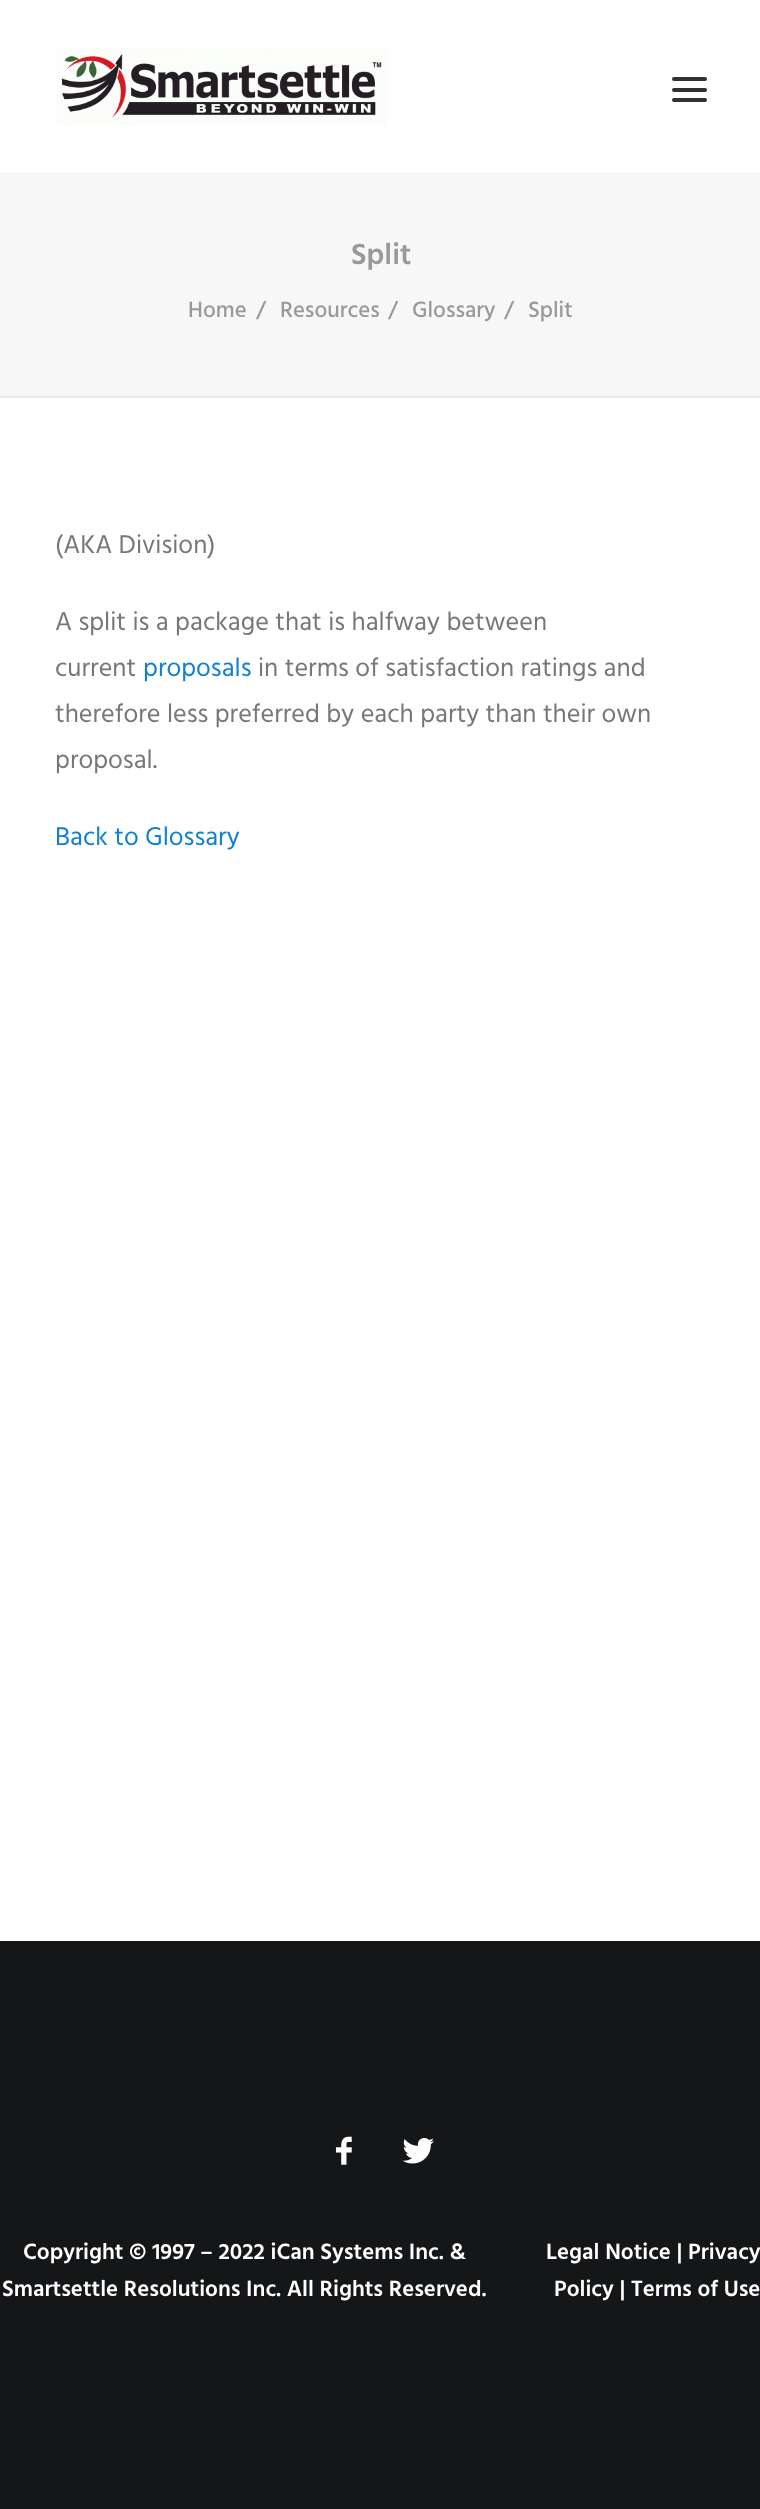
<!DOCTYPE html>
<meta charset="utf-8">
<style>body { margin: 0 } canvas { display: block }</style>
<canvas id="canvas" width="760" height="2509"></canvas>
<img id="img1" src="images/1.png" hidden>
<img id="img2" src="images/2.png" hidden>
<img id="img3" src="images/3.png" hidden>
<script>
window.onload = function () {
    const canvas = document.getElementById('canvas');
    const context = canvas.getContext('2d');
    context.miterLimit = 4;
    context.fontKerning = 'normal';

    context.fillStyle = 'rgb(20, 22, 24)';
    context.fillRect(0, 0, 760, 2509);
    context.fillStyle = 'rgb(255, 255, 255)';
    context.fillRect(0, 0, 760, 173);
    context.fillStyle = 'rgb(245, 245, 245)';
    context.fillRect(0, 173, 760, 2);
    context.drawImage(document.getElementById('img1'), 57, 48, 331, 78);
    context.fillStyle = 'rgb(48, 49, 51)';
    context.beginPath();
    context.roundRect(672, 88, 35, 4, 2);
    context.fill();
    context.beginPath();
    context.roundRect(672, 77, 35, 4, 2);
    context.fill();
    context.beginPath();
    context.roundRect(672, 98, 35, 4, 2);
    context.fill();
    context.fillStyle = 'rgb(247, 247, 247)';
    context.fillRect(0, 175, 760, 221);
    context.fillStyle = 'rgb(234, 234, 234)';
    context.fillRect(0, 396, 760, 2);
    context.fillStyle = 'rgb(255, 255, 255)';
    context.fillRect(0, 398, 760, 1543);
    context.drawImage(document.getElementById('img2'), 335, 2136, 17, 29);
    context.drawImage(document.getElementById('img3'), 402, 2138, 32, 26);
    context.font = '600 30px Hind';
    context.fillStyle = 'rgb(153, 153, 153)';
    context.fillText('Split', 351, 264);
    context.font = '500 22.75px Hind';
    context.fillText('Home', 188, 317);
    context.fillText('/', 256, 317);
    context.fillText('Resources', 280, 317);
    context.fillText('/', 388, 317);
    context.fillText('Glossary', 412, 317);
    context.fillText('/', 504, 317);
    context.fillText('Split', 528, 317);
    context.font = '26.25px Hind';
    context.fillStyle = 'rgb(119, 119, 119)';
    context.fillText('(AKA Division)', 55, 553);
    context.fillText('A split is a package that is halfway between', 55, 630);
    context.fillText('current', 55, 676);
    context.fillStyle = 'rgb(16, 128, 208)';
    context.fillText('proposals', 143, 676);
    context.fillStyle = 'rgb(119, 119, 119)';
    context.fillText('in terms of satisfaction ratings and', 258, 676);
    context.fillText('therefore less preferred by each party than their own', 55, 722);
    context.fillText('proposal.', 55, 768);
    context.fillStyle = 'rgb(16, 128, 208)';
    context.fillText('Back to Glossary', 55, 845);
    context.font = '600 22.75px Hind';
    context.fillStyle = 'rgb(255, 255, 255)';
    context.fillText('Copyright © 1997 – 2022 iCan Systems Inc. &', 23, 2259);
    context.fillText('Smartsettle Resolutions Inc. All Rights Reserved.', 2, 2296);
    context.fillText('Legal Notice | Privacy', 546, 2259);
    context.fillText('Policy | Terms of Use', 554, 2296);
};
</script>
